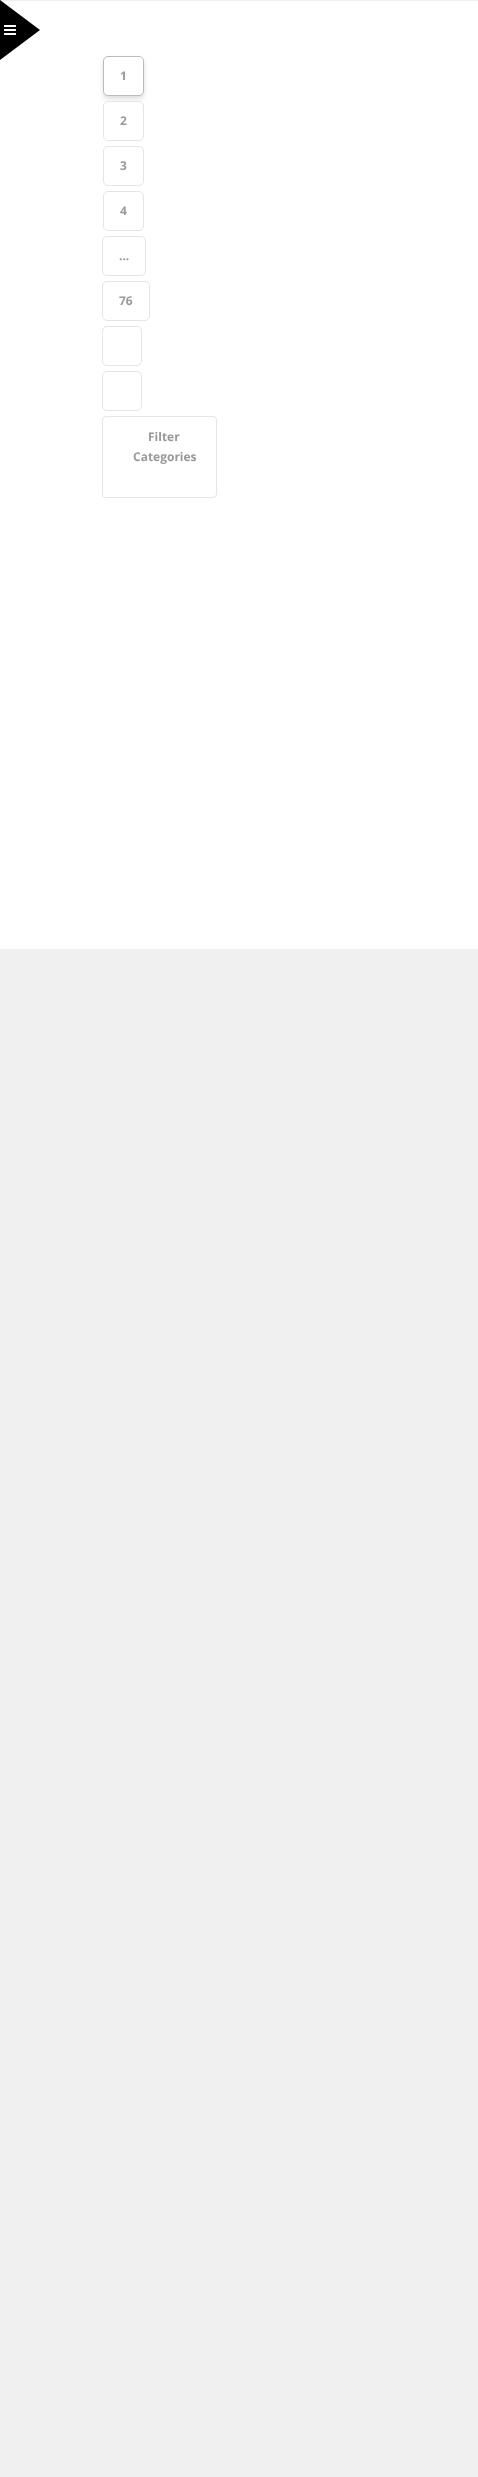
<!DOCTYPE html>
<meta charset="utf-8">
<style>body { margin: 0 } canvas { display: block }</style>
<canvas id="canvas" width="478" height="2477"></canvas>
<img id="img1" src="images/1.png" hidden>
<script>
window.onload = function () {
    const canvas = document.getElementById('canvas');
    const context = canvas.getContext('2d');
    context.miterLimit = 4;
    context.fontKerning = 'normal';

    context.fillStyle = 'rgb(240, 240, 240)';
    context.fillRect(0, 0, 478, 2477);
    context.fillStyle = 'rgb(255, 255, 255)';
    context.fillRect(0, 1, 478, 948);
    context.fillStyle = 'rgb(0, 0, 0)';
    context.beginPath();
    context.moveTo(0, 60);
    context.lineTo(0, 0);
    context.lineTo(40, 30);
    context.closePath();
    context.fill();
    context.drawImage(document.getElementById('img1'), 4, 25, 12, 10);
    context.fillStyle = 'rgba(0, 0, 0, 0.13)';
    context.filter = 'blur(2.5px)';
    context.beginPath();
    context.roundRect(103, 59, 41, 40, 5);
    context.fill();
    context.filter = 'none';
    context.fillStyle = 'rgb(255, 255, 255)';
    context.beginPath();
    context.roundRect(103.5, 56.5, 40, 39, 4.5);
    context.fill();
    context.strokeStyle = 'rgb(187, 187, 187)';
    context.stroke();
    context.beginPath();
    context.roundRect(103.5, 101.5, 40, 39, 4.5);
    context.fill();
    context.strokeStyle = 'rgb(229, 229, 229)';
    context.stroke();
    context.beginPath();
    context.roundRect(103.5, 146.5, 40, 39, 4.5);
    context.stroke();
    context.beginPath();
    context.roundRect(103.5, 191.5, 40, 39, 4.5);
    context.stroke();
    context.beginPath();
    context.roundRect(102.5, 236.5, 43, 39, 4.5);
    context.stroke();
    context.beginPath();
    context.roundRect(102.5, 281.5, 47, 39, 4.5);
    context.stroke();
    context.beginPath();
    context.roundRect(102.5, 326.5, 39, 39, 4.5);
    context.stroke();
    context.beginPath();
    context.roundRect(102.5, 371.5, 39, 39, 4.5);
    context.stroke();
    context.beginPath();
    context.roundRect(102.5, 416.5, 114, 81, 3.5);
    context.stroke();
    context.font = 'bold 12px Open Sans';
    context.fillStyle = 'rgb(153, 153, 153)';
    context.fillText('1', 120, 80);
    context.fillText('2', 120, 125);
    context.fillText('3', 120, 170);
    context.fillText('4', 120, 215);
    context.fillText('...', 119, 260);
    context.fillText('76', 119, 305);
    context.fillText('Filter', 148, 441);
    context.fillText('Categories', 133, 461);
};
</script>
